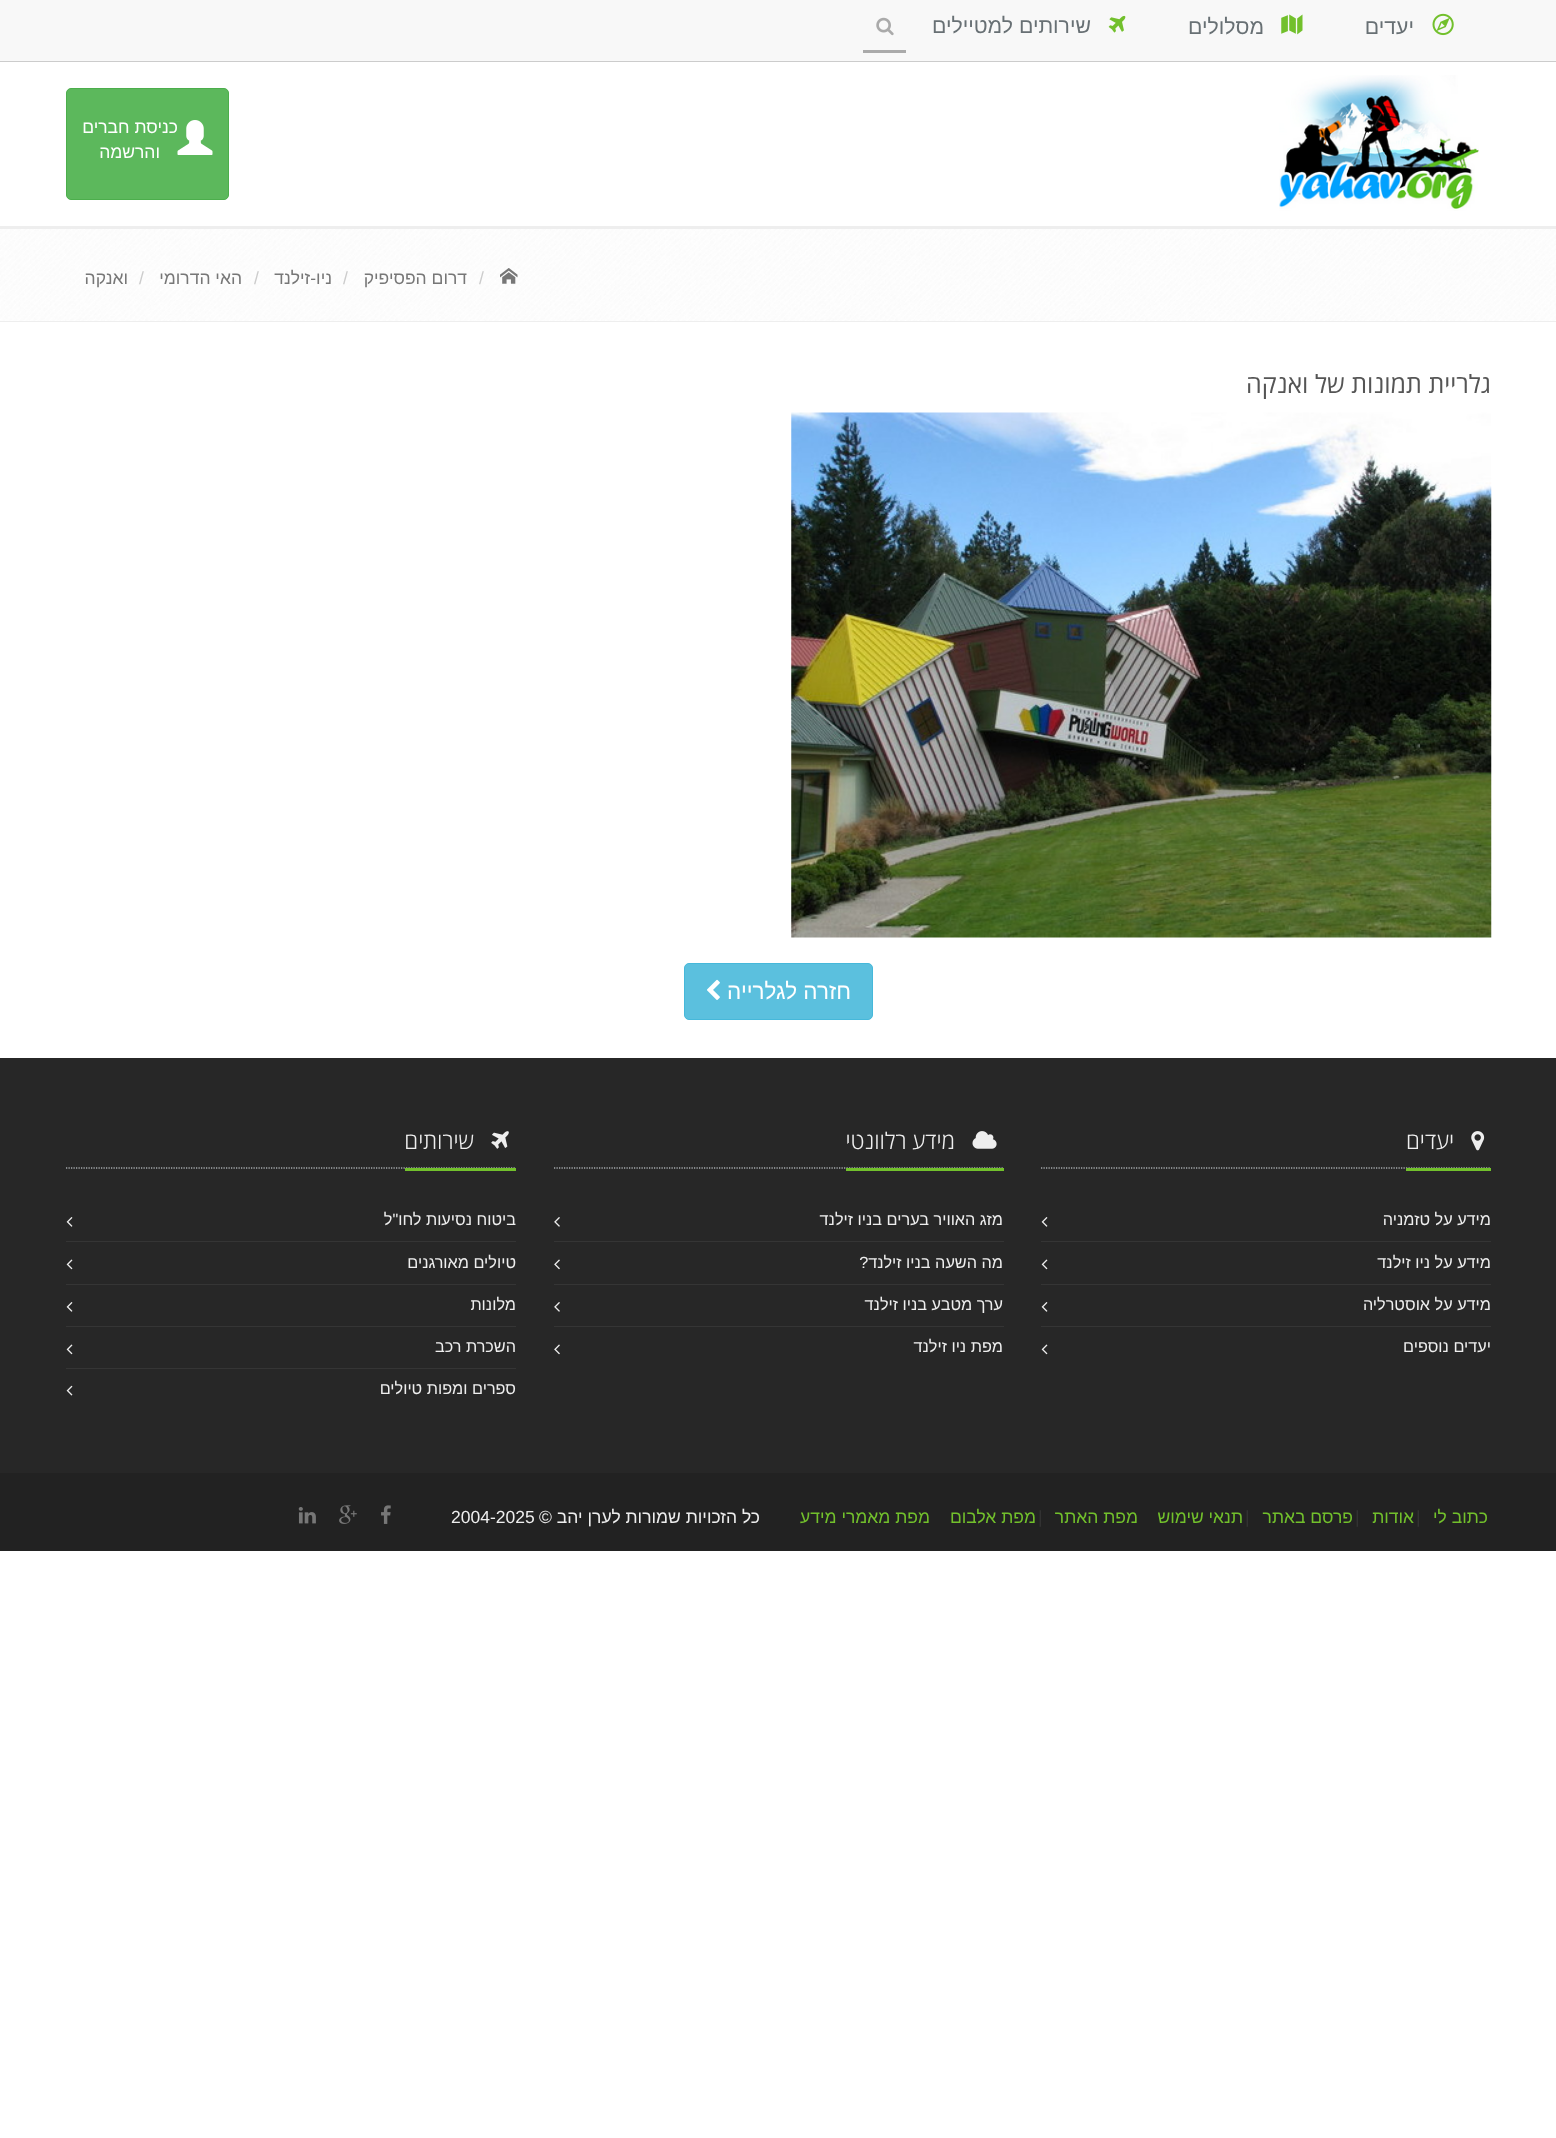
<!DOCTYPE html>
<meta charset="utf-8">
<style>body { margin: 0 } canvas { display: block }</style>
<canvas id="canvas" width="1556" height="2138"></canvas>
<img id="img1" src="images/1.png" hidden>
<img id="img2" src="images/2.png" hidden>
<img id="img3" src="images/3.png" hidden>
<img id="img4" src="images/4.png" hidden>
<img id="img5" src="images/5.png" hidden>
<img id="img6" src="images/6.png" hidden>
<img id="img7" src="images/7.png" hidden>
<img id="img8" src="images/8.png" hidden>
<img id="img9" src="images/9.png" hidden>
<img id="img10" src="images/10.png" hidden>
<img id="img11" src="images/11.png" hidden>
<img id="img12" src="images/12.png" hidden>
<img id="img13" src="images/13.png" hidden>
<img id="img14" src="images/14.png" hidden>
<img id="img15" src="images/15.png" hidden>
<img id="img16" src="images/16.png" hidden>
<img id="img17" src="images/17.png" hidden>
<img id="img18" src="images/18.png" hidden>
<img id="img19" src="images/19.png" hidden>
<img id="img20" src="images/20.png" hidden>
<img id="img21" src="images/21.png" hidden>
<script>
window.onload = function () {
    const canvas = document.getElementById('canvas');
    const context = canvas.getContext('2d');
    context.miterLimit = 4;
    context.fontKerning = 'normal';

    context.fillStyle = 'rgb(255, 255, 255)';
    context.fillRect(0, 0, 1556, 2138);
    context.fillStyle = 'rgb(238, 238, 238)';
    context.fillRect(0, 226, 1556, 3);
    context.fillStyle = 'rgb(248, 248, 248)';
    context.fillRect(0, 0, 1556, 61);
    context.fillStyle = 'rgb(204, 204, 204)';
    context.fillRect(0, 61, 1556, 1);
    context.drawImage(document.getElementById('img1'), 1432, 13, 22, 23);
    context.drawImage(document.getElementById('img2'), 1281, 14, 22, 21);
    context.drawImage(document.getElementById('img3'), 1108, 15, 18, 18);
    context.fillStyle = 'rgb(170, 170, 170)';
    context.fillRect(863, 50, 43, 3);
    context.drawImage(document.getElementById('img4'), 876, 17, 18, 19);
    context.drawImage(document.getElementById('img5'), 1279, 75, 200, 136);
    context.fillStyle = 'rgb(92, 184, 92)';
    context.beginPath();
    context.roundRect(66.5, 88.5, 162, 111, 4.5);
    context.fill();
    context.strokeStyle = 'rgb(76, 174, 76)';
    context.stroke();
    context.drawImage(document.getElementById('img6'), 177, 120, 36, 35);
    context.drawImage(document.getElementById('img7'), 0, 229, 1556, 92);
    context.fillStyle = 'rgb(238, 238, 238)';
    context.fillRect(0, 321, 1556, 1);
    context.drawImage(document.getElementById('img8'), 500, 268, 18, 16);
    context.drawImage(document.getElementById('img9'), 791, 412, 701, 526);
    context.fillStyle = 'rgb(91, 192, 222)';
    context.beginPath();
    context.roundRect(684.5, 963.5, 188, 56, 4.5);
    context.fill();
    context.strokeStyle = 'rgb(70, 184, 218)';
    context.stroke();
    context.drawImage(document.getElementById('img10'), 707, 979, 13, 21);
    context.fillStyle = 'rgb(39, 39, 39)';
    context.fillRect(0, 1058, 1556, 415);
    context.beginPath();
    context.moveTo(1041, 1168);
    context.lineTo(1491, 1168);
    context.strokeStyle = 'rgb(228, 233, 240)';
    context.lineWidth = 1.2;
    context.setLineDash([1.25, 1.25]);
    context.stroke();
    context.fillStyle = 'rgb(114, 192, 44)';
    context.fillRect(1406, 1168, 85, 3);
    context.drawImage(document.getElementById('img11'), 1471, 1131, 14, 20);
    context.drawImage(document.getElementById('img12'), 1041, 1217, 7, 10);
    context.fillStyle = 'rgb(53, 53, 53)';
    context.fillRect(1041, 1241, 450, 1);
    context.drawImage(document.getElementById('img13'), 1041, 1259, 7, 11);
    context.fillRect(1041, 1284, 450, 1);
    context.drawImage(document.getElementById('img12'), 1041, 1302, 7, 10);
    context.fillRect(1041, 1326, 450, 1);
    context.drawImage(document.getElementById('img13'), 1041, 1344, 7, 11);
    context.beginPath();
    context.moveTo(554, 1168);
    context.lineTo(1004, 1168);
    context.stroke();
    context.fillStyle = 'rgb(114, 192, 44)';
    context.fillRect(846, 1168, 158, 3);
    context.drawImage(document.getElementById('img14'), 972, 1131, 25, 18);
    context.drawImage(document.getElementById('img15'), 554, 1217, 6, 10);
    context.fillStyle = 'rgb(53, 53, 53)';
    context.fillRect(554, 1241, 450, 1);
    context.drawImage(document.getElementById('img16'), 554, 1259, 6, 11);
    context.fillRect(554, 1284, 450, 1);
    context.drawImage(document.getElementById('img15'), 554, 1302, 6, 10);
    context.fillRect(554, 1326, 450, 1);
    context.drawImage(document.getElementById('img16'), 554, 1344, 6, 11);
    context.beginPath();
    context.moveTo(66, 1168);
    context.lineTo(516, 1168);
    context.stroke();
    context.fillStyle = 'rgb(114, 192, 44)';
    context.fillRect(405, 1168, 111, 3);
    context.drawImage(document.getElementById('img17'), 491, 1131, 18, 18);
    context.drawImage(document.getElementById('img12'), 66, 1217, 7, 10);
    context.fillStyle = 'rgb(53, 53, 53)';
    context.fillRect(66, 1241, 450, 1);
    context.drawImage(document.getElementById('img13'), 66, 1259, 7, 11);
    context.fillRect(66, 1284, 450, 1);
    context.drawImage(document.getElementById('img12'), 66, 1302, 7, 10);
    context.fillRect(66, 1326, 450, 1);
    context.drawImage(document.getElementById('img13'), 66, 1344, 7, 11);
    context.fillRect(66, 1368, 450, 1);
    context.drawImage(document.getElementById('img18'), 66, 1385, 7, 11);
    context.fillStyle = 'rgb(34, 34, 34)';
    context.fillRect(0, 1473, 1556, 78);
    context.drawImage(document.getElementById('img19'), 381, 1505, 10, 19);
    context.drawImage(document.getElementById('img20'), 339, 1505, 18, 19);
    context.drawImage(document.getElementById('img21'), 298, 1507, 18, 17);
    context.direction = 'rtl';
    context.font = '21.25px Liberation Sans';
    context.fillStyle = 'rgb(104, 112, 116)';
    context.fillText('יעדים', 1414, 34);
    context.fillText('מסלולים', 1264, 34);
    context.fillText('שירותים למטיילים', 1091, 33);
    context.font = '17.5px Liberation Sans';
    context.fillStyle = 'rgb(255, 255, 255)';
    context.fillText('כניסת חברים', 178, 133);
    context.fillText('והרשמה', 160, 158);
    context.direction = 'ltr';
    context.fillStyle = 'rgb(204, 204, 204)';
    context.fillText('/', 479, 284);
    context.direction = 'rtl';
    context.fillStyle = 'rgb(119, 119, 119)';
    context.fillText('דרום הפסיפיק', 467, 284);
    context.direction = 'ltr';
    context.fillStyle = 'rgb(204, 204, 204)';
    context.fillText('/', 343, 284);
    context.direction = 'rtl';
    context.fillStyle = 'rgb(119, 119, 119)';
    context.fillText('ניו-זילנד', 332, 284);
    context.direction = 'ltr';
    context.fillStyle = 'rgb(204, 204, 204)';
    context.fillText('/', 254, 284);
    context.direction = 'rtl';
    context.fillStyle = 'rgb(119, 119, 119)';
    context.fillText('האי הדרומי', 242, 284);
    context.direction = 'ltr';
    context.fillStyle = 'rgb(204, 204, 204)';
    context.fillText('/', 139, 284);
    context.direction = 'rtl';
    context.fillStyle = 'rgb(119, 119, 119)';
    context.fillText('ואנקה', 128, 284);
    context.font = '25px Open Sans';
    context.fillStyle = 'rgb(85, 85, 85)';
    context.fillText('גלריית תמונות של ואנקה', 1491, 393);
    context.font = '22.5px Liberation Sans';
    context.fillStyle = 'rgb(255, 255, 255)';
    context.fillText('חזרה לגלרייה', 851, 999);
    context.font = '300 22.5px Open Sans';
    context.fillStyle = 'rgb(238, 238, 238)';
    context.fillText('יעדים', 1454, 1149);
    context.font = '16.25px Liberation Sans';
    context.fillText('מידע על טזמניה', 1491, 1225);
    context.fillText('מידע על ניו זילנד', 1491, 1268);
    context.fillText('מידע על אוסטרליה', 1491, 1310);
    context.fillText('יעדים נוספים', 1491, 1352);
    context.font = '300 22.5px Open Sans';
    context.fillText('מידע רלוונטי', 955, 1149);
    context.font = '16.25px Liberation Sans';
    context.fillText('מזג האוויר בערים בניו זילנד', 1003, 1225);
    context.fillText('מה השעה בניו זילנד?', 1003, 1268);
    context.fillText('ערך מטבע בניו זילנד', 1003, 1310);
    context.fillText('מפת ניו זילנד', 1003, 1352);
    context.font = '300 22.5px Open Sans';
    context.fillText('שירותים', 474, 1149);
    context.font = '16.25px Liberation Sans';
    context.fillText('ביטוח נסיעות לחו"ל', 516, 1225);
    context.fillText('טיולים מאורגנים', 516, 1268);
    context.fillText('מלונות', 516, 1310);
    context.fillText('השכרת רכב', 516, 1352);
    context.fillText('ספרים ומפות טיולים', 516, 1394);
    context.font = '17.5px Liberation Sans';
    context.fillStyle = 'rgb(114, 192, 44)';
    context.fillText('כתוב לי', 1488, 1523);
    context.direction = 'ltr';
    context.fillStyle = 'rgb(51, 51, 51)';
    context.fillText('|', 1416, 1523);
    context.direction = 'rtl';
    context.fillStyle = 'rgb(114, 192, 44)';
    context.fillText('אודות', 1414, 1523);
    context.direction = 'ltr';
    context.fillStyle = 'rgb(51, 51, 51)';
    context.fillText('|', 1355, 1523);
    context.direction = 'rtl';
    context.fillStyle = 'rgb(114, 192, 44)';
    context.fillText('פרסם באתר', 1353, 1523);
    context.direction = 'ltr';
    context.fillStyle = 'rgb(51, 51, 51)';
    context.fillText('|', 1245, 1523);
    context.direction = 'rtl';
    context.fillStyle = 'rgb(114, 192, 44)';
    context.fillText('תנאי שימוש', 1243, 1523);
    context.fillText('מפת האתר', 1138, 1523);
    context.direction = 'ltr';
    context.fillStyle = 'rgb(51, 51, 51)';
    context.fillText('|', 1038, 1523);
    context.direction = 'rtl';
    context.fillStyle = 'rgb(114, 192, 44)';
    context.fillText('מפת אלבום', 1036, 1523);
    context.fillText('מפת מאמרי מידע', 930, 1523);
    context.fillStyle = 'rgb(238, 238, 238)';
    context.fillText('כל הזכויות שמורות לערן יהב ©', 760, 1523);
    context.direction = 'ltr';
    context.fillText('2004-2025', 451, 1523);
};
</script>
